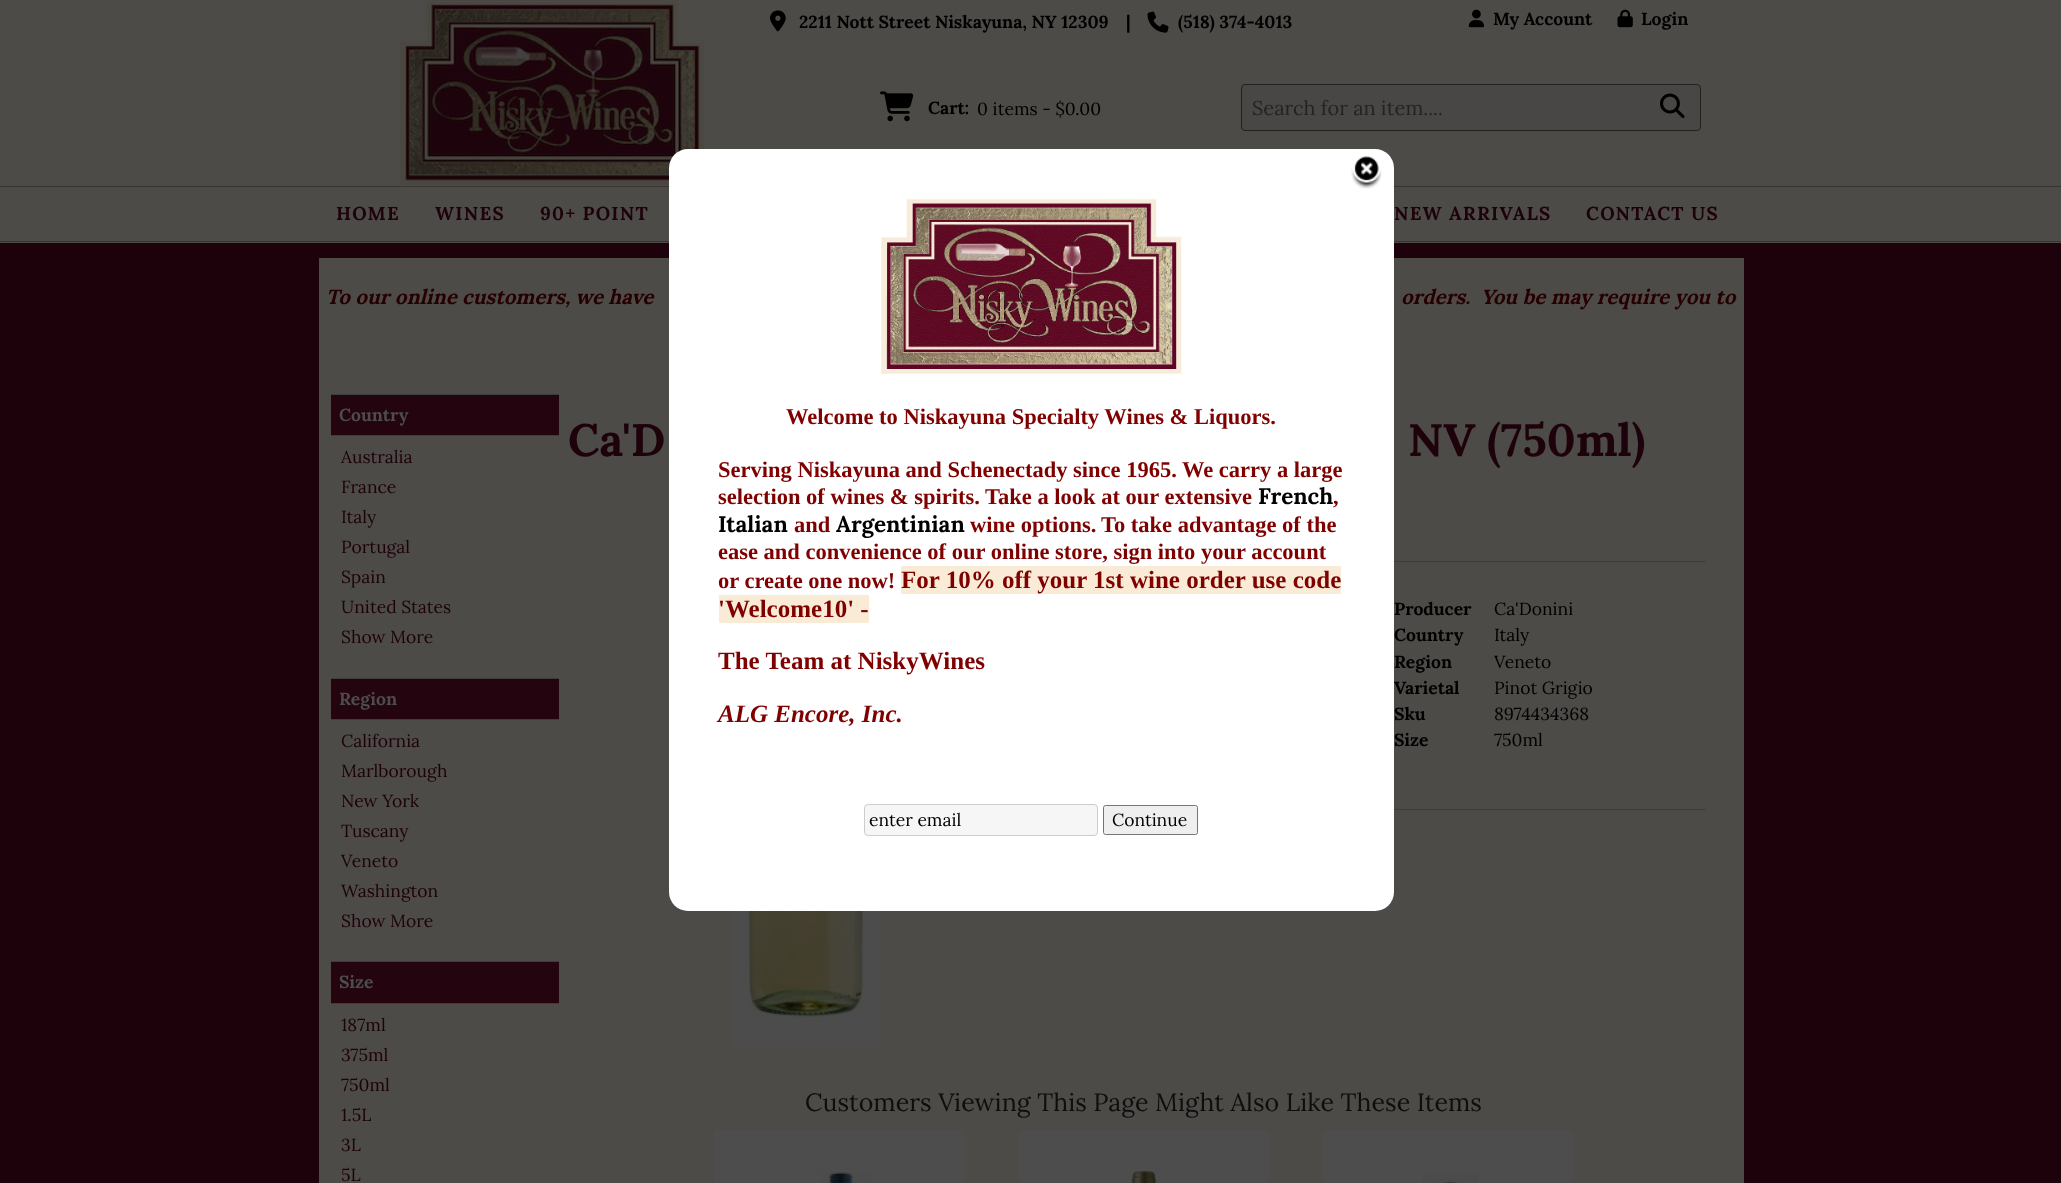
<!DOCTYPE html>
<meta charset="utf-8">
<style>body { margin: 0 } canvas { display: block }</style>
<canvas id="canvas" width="2061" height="1183"></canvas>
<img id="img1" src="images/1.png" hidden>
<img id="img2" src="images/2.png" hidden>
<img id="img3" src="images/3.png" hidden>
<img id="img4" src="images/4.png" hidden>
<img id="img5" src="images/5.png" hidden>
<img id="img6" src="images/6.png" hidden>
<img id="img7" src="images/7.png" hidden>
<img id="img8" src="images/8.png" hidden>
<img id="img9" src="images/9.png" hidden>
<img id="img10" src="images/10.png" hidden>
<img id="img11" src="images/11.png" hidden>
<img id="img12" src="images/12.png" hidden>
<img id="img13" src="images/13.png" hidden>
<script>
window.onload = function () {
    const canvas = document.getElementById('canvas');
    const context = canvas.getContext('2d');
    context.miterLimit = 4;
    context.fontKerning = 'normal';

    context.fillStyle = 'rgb(29, 2, 11)';
    context.fillRect(0, 0, 2061, 1183);
    context.fillStyle = 'rgb(77, 75, 72)';
    context.fillRect(0, 0, 2061, 243);
    context.drawImage(document.getElementById('img1'), 400, 0, 304, 185);
    context.drawImage(document.getElementById('img2'), 1468, 9, 16, 19);
    context.drawImage(document.getElementById('img3'), 1617, 9, 16, 19);
    context.drawImage(document.getElementById('img4'), 880, 91, 34, 31);
    context.fillStyle = 'rgb(72, 71, 69)';
    context.beginPath();
    context.roundRect(1241.5, 84.5, 459, 46, 3.5);
    context.fill();
    context.strokeStyle = 'rgb(37, 32, 32)';
    context.stroke();
    context.drawImage(document.getElementById('img5'), 1660, 93, 25, 25);
    context.fillStyle = 'rgb(58, 51, 49)';
    context.fillRect(0, 186, 2061, 1);
    context.fillRect(0, 241, 2061, 1);
    context.drawImage(document.getElementById('img6'), 770, 10, 16, 22);
    context.drawImage(document.getElementById('img7'), 1147, 11, 22, 22);
    context.fillStyle = 'rgb(77, 75, 72)';
    context.fillRect(319, 258, 1425, 925);
    context.fillStyle = 'rgb(35, 4, 15)';
    context.fillRect(331, 395, 228, 40);
    context.fillStyle = 'rgb(61, 61, 61)';
    context.fillRect(331, 394, 228, 1);
    context.fillRect(331, 435, 228, 1);
    context.fillStyle = 'rgb(35, 4, 15)';
    context.fillRect(331, 679, 228, 40);
    context.fillStyle = 'rgb(61, 61, 61)';
    context.fillRect(331, 678, 228, 1);
    context.fillRect(331, 719, 228, 1);
    context.fillStyle = 'rgb(35, 4, 15)';
    context.fillRect(331, 962, 228, 41);
    context.fillStyle = 'rgb(61, 61, 61)';
    context.fillRect(331, 961, 228, 1);
    context.fillRect(331, 1003, 228, 1);
    context.fillRect(1394, 561, 312, 1);
    context.fillRect(1394, 809, 312, 1);
    context.drawImage(document.getElementById('img8'), 731, 911, 149, 136);
    context.fillStyle = 'rgb(77, 77, 77)';
    context.fillRect(714, 1130, 250, 53);
    context.drawImage(document.getElementById('img9'), 821, 1172, 50, 11);
    context.fillRect(1019, 1130, 250, 53);
    context.drawImage(document.getElementById('img10'), 1131, 1171, 26, 12);
    context.fillRect(1323, 1130, 250, 53);
    context.drawImage(document.getElementById('img11'), 1422, 1172, 56, 11);
    context.fillStyle = 'rgb(255, 255, 255)';
    context.beginPath();
    context.roundRect(669, 149, 725, 762, 19);
    context.fill();
    context.drawImage(document.getElementById('img12'), 1351, 156, 31, 33);
    context.drawImage(document.getElementById('img13'), 881, 198, 301, 176);
    context.fillStyle = 'rgb(250, 235, 215)';
    context.fillRect(901, 566, 440, 28);
    context.fillRect(719, 595, 150, 28);
    context.fillStyle = 'rgb(246, 246, 246)';
    context.beginPath();
    context.roundRect(864.5, 804.5, 233, 31, 3.5);
    context.fill();
    context.strokeStyle = 'rgb(204, 204, 204)';
    context.stroke();
    context.fillStyle = 'rgb(239, 239, 239)';
    context.beginPath();
    context.roundRect(1103.5, 805.5, 94, 29, 2);
    context.fill();
    context.strokeStyle = 'rgb(118, 118, 118)';
    context.stroke();
    context.font = 'bold 17.5px Lora';
    context.fillStyle = 'rgb(0, 0, 0)';
    context.fillText('My Account', 1493, 25);
    context.fillText('Login', 1641, 25);
    context.fillText('Cart:', 928, 114);
    context.font = '17.5px Lora';
    context.fillText('0 items - $0.00', 977, 115);
    context.font = '20px Lora';
    context.fillStyle = 'rgb(35, 35, 35)';
    context.fillText('Search for an item....', 1252, 115);
    context.letterSpacing = '1.25px';
    context.font = 'bold 18.75px Lora';
    context.fillStyle = 'rgb(29, 2, 11)';
    context.fillText('HOME', 336, 220);
    context.fillText('WINES', 435, 220);
    context.fillText('90+ POINT', 540, 220);
    context.fillText('NEW ARRIVALS', 1394, 220);
    context.fillText('CONTACT US', 1586, 220);
    context.letterSpacing = '0px';
    context.font = 'bold 17.5px Lora';
    context.fillStyle = 'rgb(0, 0, 0)';
    context.fillText('2211 Nott Street Niskayuna, NY 12309', 799, 28);
    context.fillText('|', 1126, 28);
    context.fillText('(518) 374-4013', 1178, 28);
    context.font = 'italic bold 20.5px Lora';
    context.fillStyle = 'rgb(38, 0, 0)';
    context.fillText('To our online customers, we have', 326, 304);
    context.fillText('orders.  You be may require you to', 1401, 304);
    context.font = 'bold 17.5px Lora';
    context.fillStyle = 'rgb(77, 77, 77)';
    context.fillText('Country', 339, 421);
    context.font = '17.5px Lora';
    context.fillStyle = 'rgb(29, 2, 11)';
    context.fillText('Australia', 341, 463);
    context.fillText('France', 341, 493);
    context.fillText('Italy', 341, 523);
    context.fillText('Portugal', 341, 553);
    context.fillText('Spain', 341, 583);
    context.fillText('United States', 341, 613);
    context.fillText('Show More', 341, 643);
    context.font = 'bold 17.5px Lora';
    context.fillStyle = 'rgb(77, 77, 77)';
    context.fillText('Region', 339, 705);
    context.font = '17.5px Lora';
    context.fillStyle = 'rgb(29, 2, 11)';
    context.fillText('California', 341, 747);
    context.fillText('Marlborough', 341, 777);
    context.fillText('New York', 341, 807);
    context.fillText('Tuscany', 341, 837);
    context.fillText('Veneto', 341, 867);
    context.fillText('Washington', 341, 897);
    context.fillText('Show More', 341, 927);
    context.font = 'bold 17.5px Lora';
    context.fillStyle = 'rgb(77, 77, 77)';
    context.fillText('Size', 339, 988);
    context.font = '17.5px Lora';
    context.fillStyle = 'rgb(29, 2, 11)';
    context.fillText('187ml', 341, 1031);
    context.fillText('375ml', 341, 1061);
    context.fillText('750ml', 341, 1091);
    context.fillText('1.5L', 341, 1121);
    context.fillText('3L', 341, 1151);
    context.fillText('5L', 341, 1181);
    context.font = 'bold 45.5px Lora';
    context.fillText('Ca\'D', 568, 456);
    context.fillText('NV (750ml)', 1408, 456);
    context.font = 'bold 17.5px Lora';
    context.fillStyle = 'rgb(0, 0, 0)';
    context.fillText('Producer', 1394, 615);
    context.font = '17.5px Lora';
    context.fillText('Ca\'Donini', 1494, 615);
    context.font = 'bold 17.5px Lora';
    context.fillText('Country', 1394, 641);
    context.font = '17.5px Lora';
    context.fillText('Italy', 1494, 641);
    context.font = 'bold 17.5px Lora';
    context.fillText('Region', 1394, 668);
    context.font = '17.5px Lora';
    context.fillText('Veneto', 1494, 668);
    context.font = 'bold 17.5px Lora';
    context.fillText('Varietal', 1394, 694);
    context.font = '17.5px Lora';
    context.fillText('Pinot Grigio', 1494, 694);
    context.font = 'bold 17.5px Lora';
    context.fillText('Sku', 1394, 720);
    context.font = '17.5px Lora';
    context.fillText('8974434368', 1494, 720);
    context.font = 'bold 17.5px Lora';
    context.fillText('Size', 1394, 746);
    context.font = '17.5px Lora';
    context.fillText('750ml', 1494, 746);
    context.font = '25px Lora';
    context.fillStyle = 'rgb(14, 14, 14)';
    context.fillText('Customers Viewing This Page Might Also Like These Items', 805, 1111);
    context.font = 'bold 22.5px Liberation Serif';
    context.fillStyle = 'rgb(128, 0, 0)';
    context.fillText('Welcome to Niskayuna Specialty Wines & Liquors.', 786, 424);
    context.fillText('Serving Niskayuna and Schenectady since 1965.', 718, 477);
    context.fillText('We carry a large', 1182, 477);
    context.fillText('selection of wines & spirits. Take a look at our extensive', 718, 504);
    context.font = 'bold 22.5px Lora';
    context.fillStyle = 'rgb(0, 0, 0)';
    context.fillText('French', 1258, 504);
    context.font = 'bold 22.5px Liberation Serif';
    context.fillStyle = 'rgb(128, 0, 0)';
    context.fillText(',', 1333, 504);
    context.font = 'bold 22.5px Lora';
    context.fillStyle = 'rgb(0, 0, 0)';
    context.fillText('Italian', 718, 532);
    context.font = 'bold 22.5px Liberation Serif';
    context.fillStyle = 'rgb(128, 0, 0)';
    context.fillText('and', 794, 532);
    context.font = 'bold 22.5px Lora';
    context.fillStyle = 'rgb(0, 0, 0)';
    context.fillText('Argentinian', 836, 532);
    context.font = 'bold 22.5px Liberation Serif';
    context.fillStyle = 'rgb(128, 0, 0)';
    context.fillText('wine options.', 970, 532);
    context.fillText('To take advantage of the', 1101, 532);
    context.fillText('ease and convenience of our online store, sign into your account', 718, 559);
    context.fillText('or create one now!', 718, 588);
    context.font = 'bold 25px Liberation Serif';
    context.fillText('For 10% off your 1st wine order use code', 901, 588);
    context.fillText('\'Welcome10\' -', 718, 617);
    context.fillText('The Team at NiskyWines', 718, 669);
    context.font = 'italic bold 25px Liberation Serif';
    context.fillText('ALG Encore, Inc.', 718, 722);
    context.font = '17.5px Lora';
    context.fillStyle = 'rgb(0, 0, 0)';
    context.fillText('enter email', 869, 826);
    context.fillText('Continue', 1112, 826);
};
</script>
